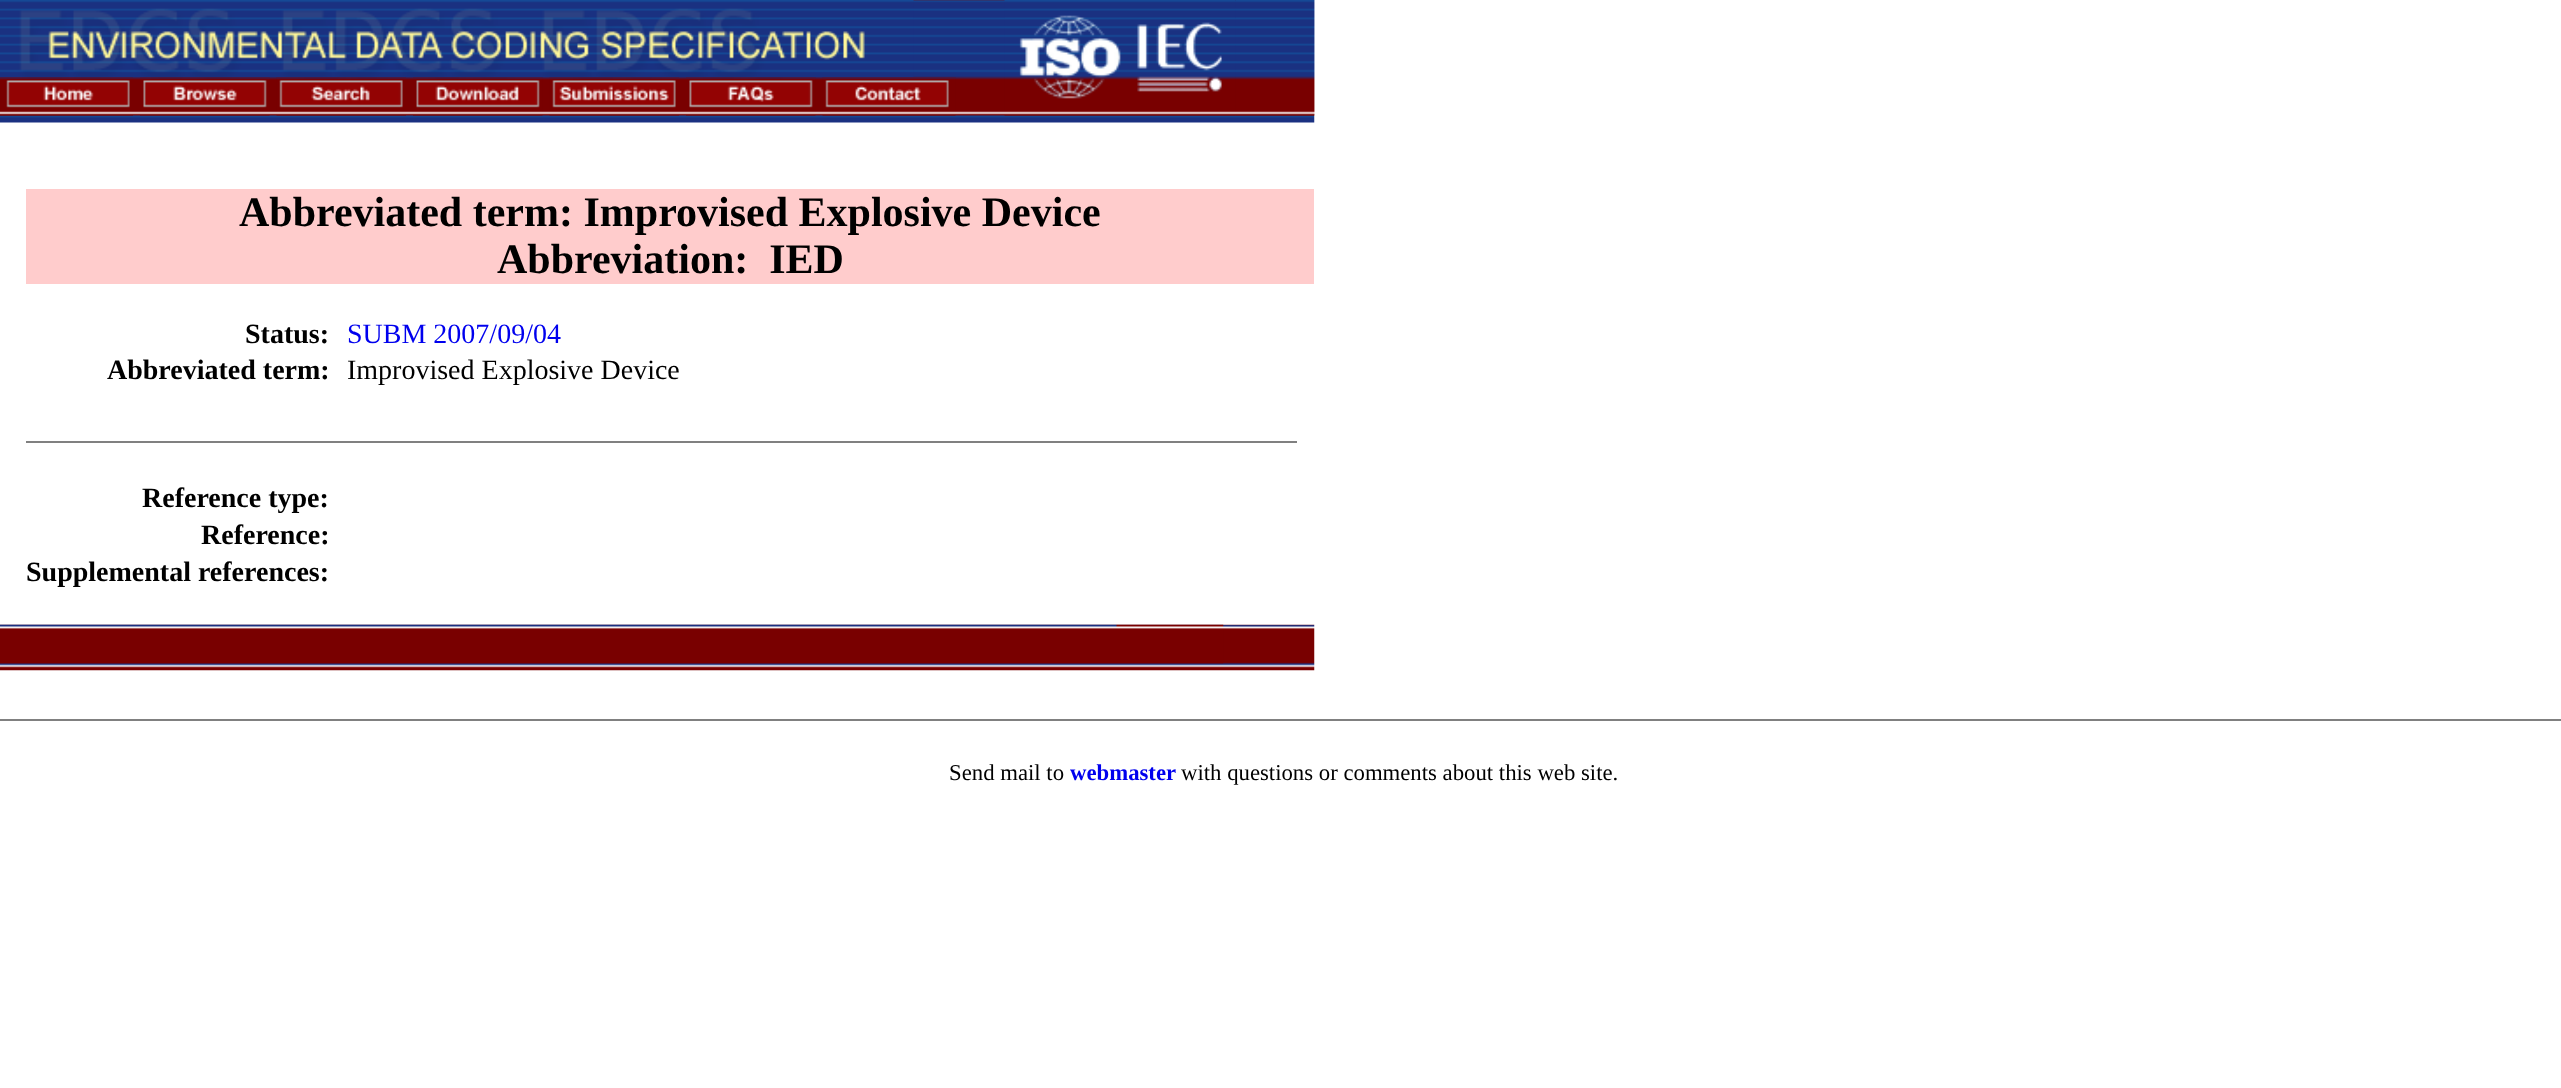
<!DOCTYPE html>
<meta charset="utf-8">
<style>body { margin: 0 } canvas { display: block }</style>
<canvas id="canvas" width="2561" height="1088"></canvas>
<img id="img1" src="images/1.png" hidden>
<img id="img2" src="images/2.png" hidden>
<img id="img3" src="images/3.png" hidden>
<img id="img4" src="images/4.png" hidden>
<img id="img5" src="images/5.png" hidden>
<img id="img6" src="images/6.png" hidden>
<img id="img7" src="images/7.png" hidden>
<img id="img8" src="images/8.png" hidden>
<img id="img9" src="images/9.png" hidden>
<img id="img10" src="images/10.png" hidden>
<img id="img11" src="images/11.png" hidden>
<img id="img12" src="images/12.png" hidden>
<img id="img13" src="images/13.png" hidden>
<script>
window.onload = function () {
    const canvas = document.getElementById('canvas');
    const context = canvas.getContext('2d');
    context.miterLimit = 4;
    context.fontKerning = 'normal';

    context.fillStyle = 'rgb(255, 255, 255)';
    context.fillRect(0, 0, 2561, 1088);
    context.drawImage(document.getElementById('img1'), 0, 0, 1315, 123);
    context.drawImage(document.getElementById('img2'), 0, 0, 914, 77);
    context.drawImage(document.getElementById('img3'), 1004, 0, 232, 116);
    context.drawImage(document.getElementById('img4'), 1235, 0, 80, 116);
    context.drawImage(document.getElementById('img5'), 0, 77, 133, 39);
    context.drawImage(document.getElementById('img6'), 140, 77, 130, 39);
    context.drawImage(document.getElementById('img7'), 276, 77, 130, 39);
    context.drawImage(document.getElementById('img8'), 413, 77, 130, 39);
    context.drawImage(document.getElementById('img9'), 549, 77, 130, 39);
    context.drawImage(document.getElementById('img10'), 686, 77, 130, 39);
    context.drawImage(document.getElementById('img11'), 822, 77, 134, 39);
    context.fillStyle = 'rgb(255, 204, 204)';
    context.fillRect(26, 189, 1288, 95);
    context.fillStyle = 'rgb(128, 128, 128)';
    context.fillRect(26, 441, 1271, 2);
    context.drawImage(document.getElementById('img12'), 0, 624, 1315, 47);
    context.drawImage(document.getElementById('img13'), 0, 624, 1224, 40);
    context.fillRect(0, 719, 2561, 2);
    context.font = 'bold 42px Liberation Serif';
    context.fillStyle = 'rgb(0, 0, 0)';
    context.fillText('Abbreviated term: Improvised Explosive Device', 239, 226);
    context.fillText('Abbreviation:  IED', 497, 273);
    context.font = 'bold 28px Liberation Serif';
    context.fillText('Status:', 245, 343);
    context.font = '28px Liberation Serif';
    context.fillStyle = 'rgb(0, 0, 238)';
    context.fillText('SUBM 2007/09/04', 347, 343);
    context.font = 'bold 28px Liberation Serif';
    context.fillStyle = 'rgb(0, 0, 0)';
    context.fillText('Abbreviated term:', 107, 379);
    context.font = '28px Liberation Serif';
    context.fillText('Improvised Explosive Device', 347, 379);
    context.font = 'bold 28px Liberation Serif';
    context.fillText('Reference type:', 142, 507);
    context.fillText('Reference:', 201, 544);
    context.fillText('Supplemental references:', 26, 581);
    context.font = '22.75px Liberation Serif';
    context.fillText('Send mail to', 949, 780);
    context.font = 'bold 22.75px Liberation Serif';
    context.fillStyle = 'rgb(0, 0, 238)';
    context.fillText('webmaster', 1070, 780);
    context.font = '22.75px Liberation Serif';
    context.fillStyle = 'rgb(0, 0, 0)';
    context.fillText('with questions or comments about this web site.', 1181, 780);
};
</script>
